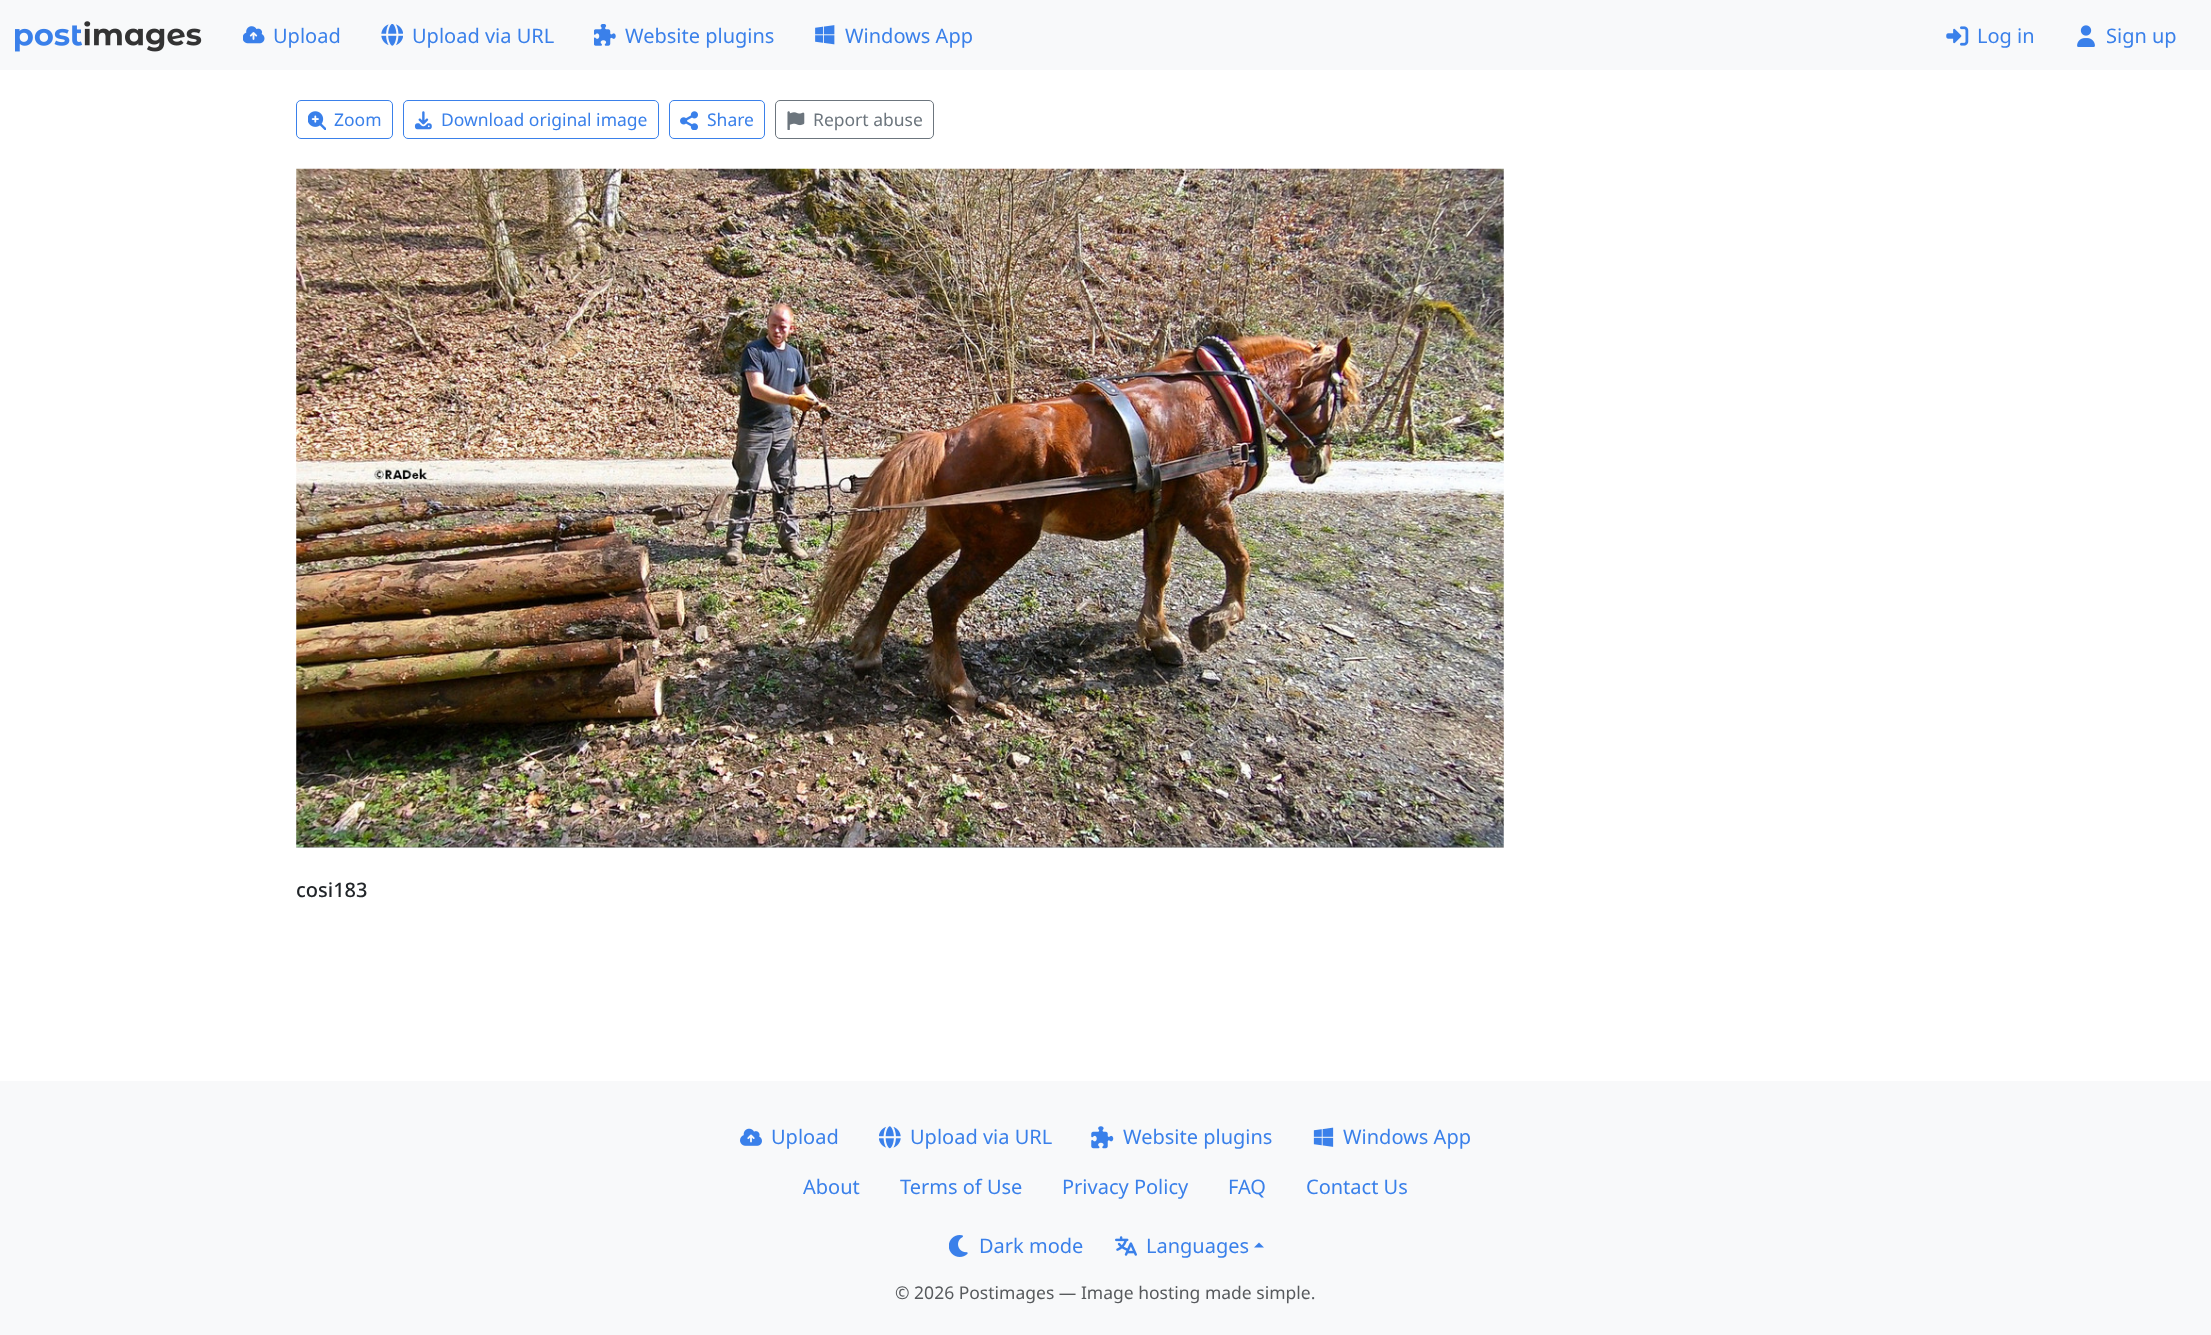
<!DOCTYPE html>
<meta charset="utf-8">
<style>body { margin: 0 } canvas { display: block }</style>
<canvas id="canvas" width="2211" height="1335"></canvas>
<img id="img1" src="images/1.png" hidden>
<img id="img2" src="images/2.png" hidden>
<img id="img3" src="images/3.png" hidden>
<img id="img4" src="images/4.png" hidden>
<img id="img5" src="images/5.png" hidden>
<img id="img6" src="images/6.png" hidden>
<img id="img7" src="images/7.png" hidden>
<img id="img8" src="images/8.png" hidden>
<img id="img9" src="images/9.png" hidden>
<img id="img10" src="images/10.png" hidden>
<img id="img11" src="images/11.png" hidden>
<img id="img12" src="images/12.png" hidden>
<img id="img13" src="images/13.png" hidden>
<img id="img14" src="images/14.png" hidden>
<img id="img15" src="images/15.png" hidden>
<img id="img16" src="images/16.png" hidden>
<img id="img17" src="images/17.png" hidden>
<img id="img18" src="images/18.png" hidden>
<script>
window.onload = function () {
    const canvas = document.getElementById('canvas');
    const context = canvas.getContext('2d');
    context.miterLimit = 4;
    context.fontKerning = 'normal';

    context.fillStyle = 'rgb(255, 255, 255)';
    context.fillRect(0, 0, 2211, 1335);
    context.fillStyle = 'rgb(248, 249, 250)';
    context.fillRect(0, 0, 2211, 70);
    context.drawImage(document.getElementById('img1'), 15, 21, 187, 31);
    context.drawImage(document.getElementById('img2'), 243, 26, 22, 18);
    context.drawImage(document.getElementById('img3'), 381, 24, 22, 22);
    context.drawImage(document.getElementById('img4'), 594, 24, 22, 22);
    context.drawImage(document.getElementById('img5'), 815, 25, 20, 20);
    context.drawImage(document.getElementById('img6'), 1946, 26, 23, 20);
    context.drawImage(document.getElementById('img7'), 2077, 25, 18, 22);
    context.beginPath();
    context.roundRect(296.5, 100.5, 96, 38, 4.5);
    context.strokeStyle = 'rgb(58, 128, 234)';
    context.stroke();
    context.drawImage(document.getElementById('img8'), 308, 111, 18, 19);
    context.beginPath();
    context.roundRect(403.5, 100.5, 255, 38, 4.5);
    context.stroke();
    context.drawImage(document.getElementById('img9'), 414, 111, 18, 19);
    context.beginPath();
    context.roundRect(669.5, 100.5, 95, 38, 4.5);
    context.stroke();
    context.drawImage(document.getElementById('img10'), 680, 111, 18, 19);
    context.beginPath();
    context.roundRect(775.5, 100.5, 158, 38, 4.5);
    context.strokeStyle = 'rgb(108, 117, 125)';
    context.stroke();
    context.drawImage(document.getElementById('img11'), 787, 111, 18, 19);
    context.drawImage(document.getElementById('img12'), 296, 168, 1208, 680);
    context.fillRect(0, 1081, 2211, 254);
    context.drawImage(document.getElementById('img13'), 740, 1128, 22, 18);
    context.drawImage(document.getElementById('img14'), 879, 1126, 22, 23);
    context.drawImage(document.getElementById('img15'), 1091, 1126, 23, 23);
    context.drawImage(document.getElementById('img16'), 1313, 1127, 21, 20);
    context.drawImage(document.getElementById('img17'), 949, 1235, 19, 22);
    context.drawImage(document.getElementById('img18'), 1115, 1236, 22, 20);
    context.fillStyle = 'rgb(58, 128, 234)';
    context.beginPath();
    context.moveTo(1264, 1247.5);
    context.lineTo(1254, 1247.5);
    context.lineTo(1259, 1242.5);
    context.closePath();
    context.fill();
    context.font = '20px Noto Sans';
    context.fillText('Upload', 273, 43);
    context.fillText('Upload via URL', 412, 43);
    context.fillText('Website plugins', 625, 43);
    context.fillText('Windows App', 845, 43);
    context.fillText('Log in', 1977, 43);
    context.fillText('Sign up', 2106, 43);
    context.font = '17.5px Noto Sans';
    context.fillText('Zoom', 334, 126);
    context.fillText('Download original image', 441, 126);
    context.fillText('Share', 707, 126);
    context.fillStyle = 'rgb(108, 117, 125)';
    context.fillText('Report abuse', 813, 126);
    context.font = '500 20px Noto Sans';
    context.fillStyle = 'rgb(33, 37, 41)';
    context.fillText('cosi183', 296, 897);
    context.font = '20px Noto Sans';
    context.fillStyle = 'rgb(58, 128, 234)';
    context.fillText('Upload', 771, 1144);
    context.fillText('Upload via URL', 910, 1144);
    context.fillText('Website plugins', 1123, 1144);
    context.fillText('Windows App', 1343, 1144);
    context.fillText('About', 803, 1194);
    context.fillText('Terms of Use', 900, 1194);
    context.fillText('Privacy Policy', 1062, 1194);
    context.fillText('FAQ', 1228, 1194);
    context.fillText('Contact Us', 1306, 1194);
    context.fillText('Dark mode', 979, 1253);
    context.fillText('Languages', 1146, 1253);
    context.font = '17.5px Noto Sans';
    context.fillStyle = 'rgb(87, 90, 93)';
    context.fillText('© 2026 Postimages — Image hosting made simple.', 895, 1299);
};
</script>
